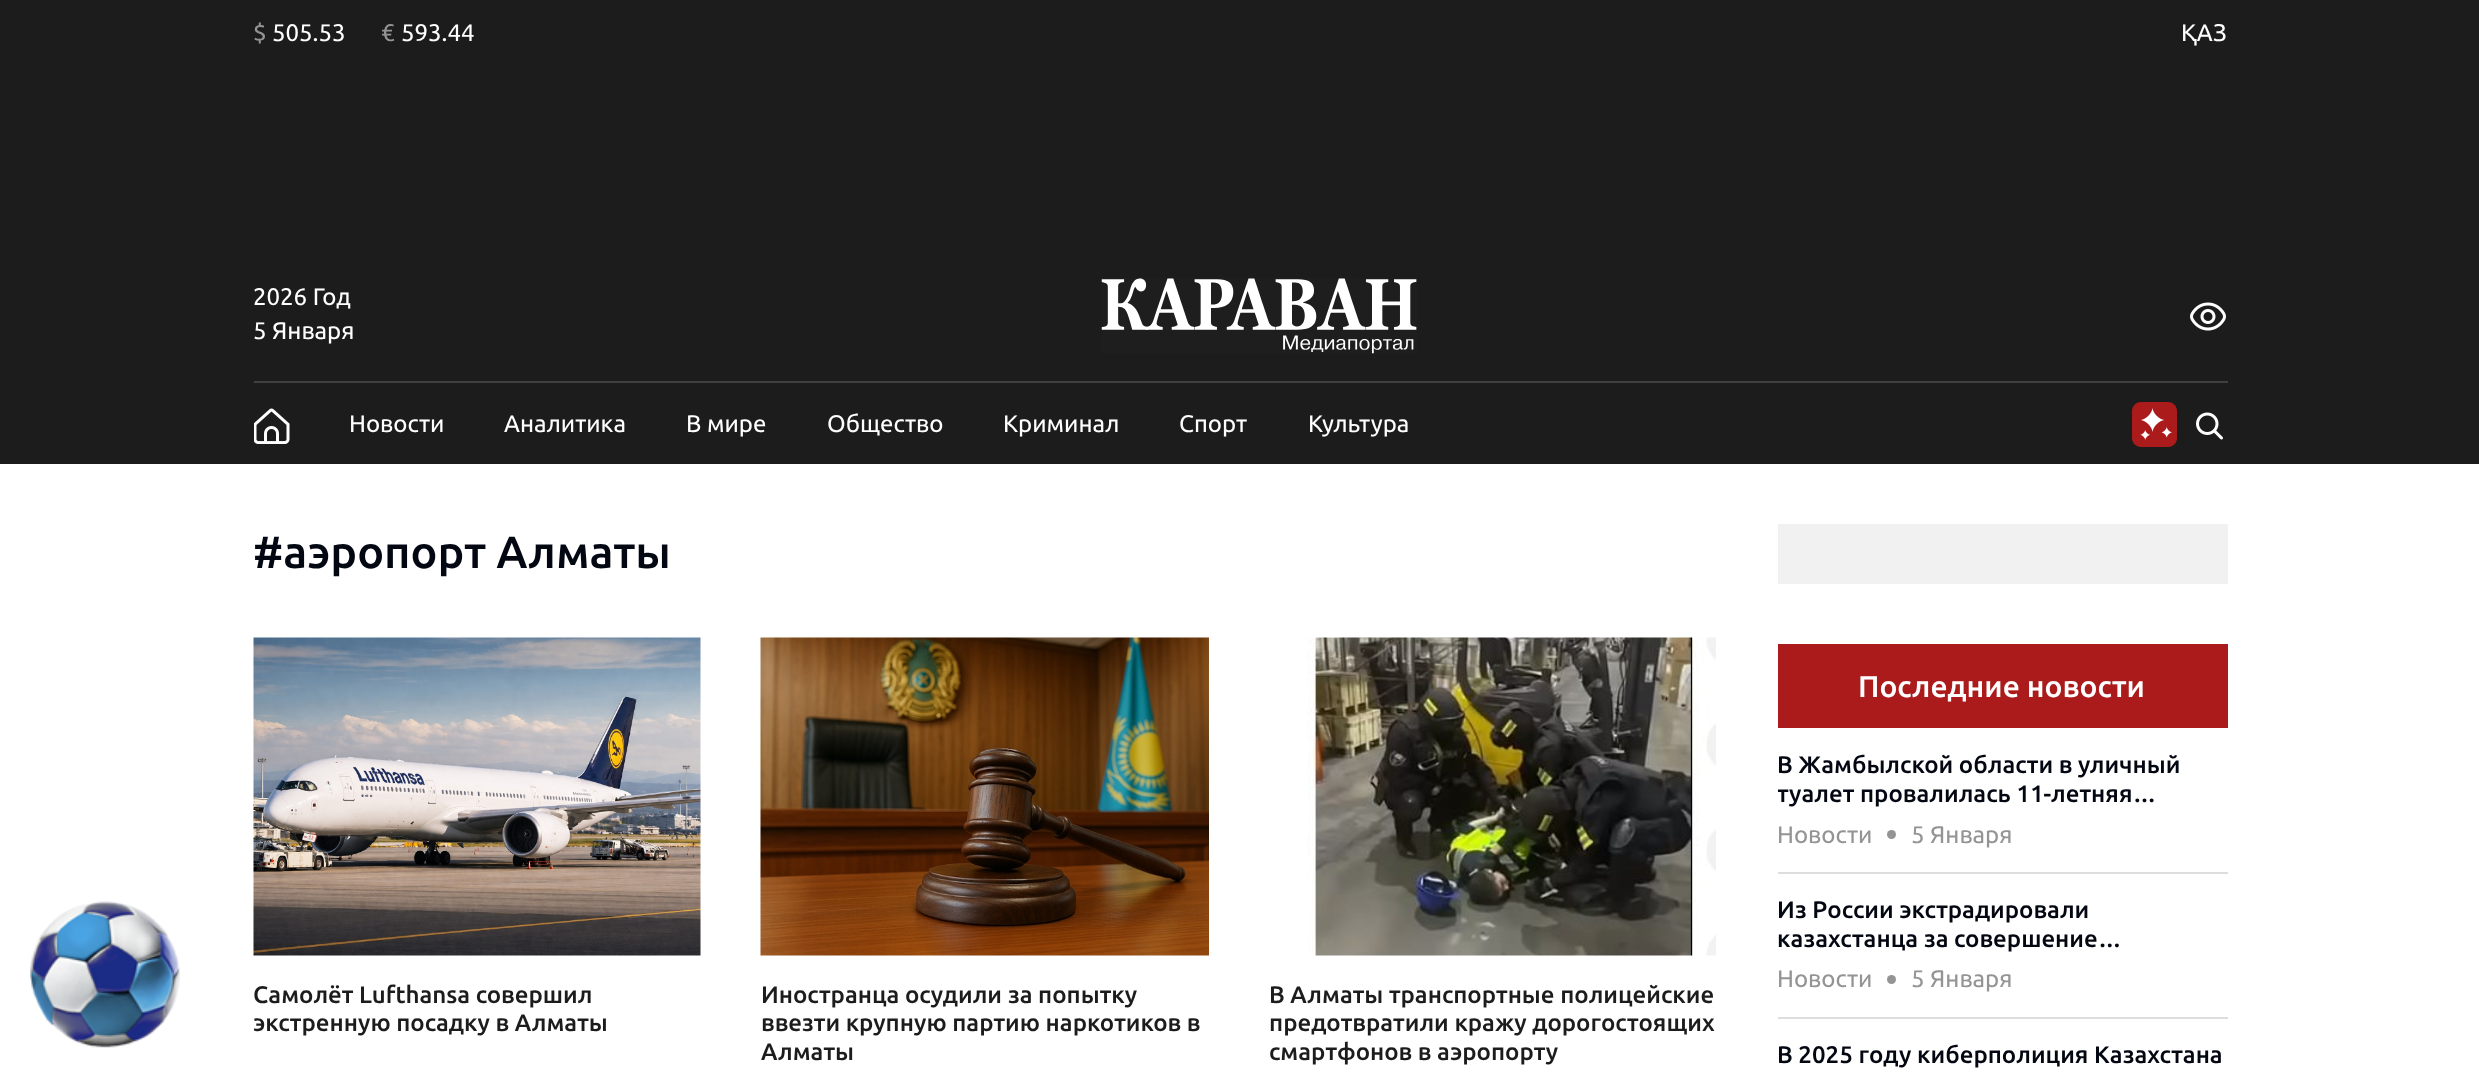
<!DOCTYPE html>
<meta charset="utf-8">
<style>body { margin: 0 } canvas { display: block }</style>
<canvas id="canvas" width="2479" height="1078"></canvas>
<img id="img1" src="images/1.png" hidden>
<img id="img2" src="images/2.png" hidden>
<img id="img3" src="images/3.png" hidden>
<img id="img4" src="images/4.png" hidden>
<img id="img5" src="images/5.png" hidden>
<img id="img6" src="images/6.png" hidden>
<img id="img7" src="images/7.png" hidden>
<img id="img8" src="images/8.png" hidden>
<img id="img9" src="images/9.png" hidden>
<script>
window.onload = function () {
    const canvas = document.getElementById('canvas');
    const context = canvas.getContext('2d');
    context.miterLimit = 4;
    context.fontKerning = 'normal';

    context.fillStyle = 'rgb(255, 255, 255)';
    context.fillRect(0, 0, 2479, 1078);
    context.fillStyle = 'rgb(28, 28, 28)';
    context.fillRect(0, 0, 2479, 464);
    context.drawImage(document.getElementById('img1'), 1101, 278, 316, 76);
    context.drawImage(document.getElementById('img2'), 2190, 302, 36, 29);
    context.fillStyle = 'rgb(64, 64, 64)';
    context.fillRect(254, 381, 1974, 2);
    context.drawImage(document.getElementById('img3'), 254, 408, 36, 36);
    context.drawImage(document.getElementById('img4'), 2132, 402, 45, 45);
    context.drawImage(document.getElementById('img5'), 2196, 412, 27, 28);
    context.drawImage(document.getElementById('img6'), 30, 901, 150, 147);
    context.drawImage(document.getElementById('img7'), 253, 637, 448, 319);
    context.drawImage(document.getElementById('img8'), 760, 637, 449, 319);
    context.drawImage(document.getElementById('img9'), 1307, 637, 409, 319);
    context.fillStyle = 'rgb(241, 241, 241)';
    context.fillRect(1778, 524, 450, 60);
    context.fillStyle = 'rgb(171, 27, 27)';
    context.fillRect(1778, 644, 450, 84);
    context.fillStyle = 'rgb(221, 221, 221)';
    context.fillRect(1778, 872, 450, 2);
    context.fillStyle = 'rgb(148, 148, 148)';
    context.beginPath();
    context.arc(1891.5, 834.5, 4.5, 0, 2 * Math.PI);
    context.fill();
    context.fillStyle = 'rgb(221, 221, 221)';
    context.fillRect(1778, 1017, 450, 2);
    context.fillStyle = 'rgb(148, 148, 148)';
    context.beginPath();
    context.arc(1891.5, 979.5, 4.5, 0, 2 * Math.PI);
    context.fill();
    context.font = '24px Ubuntu';
    context.fillText('$', 253, 41);
    context.fillStyle = 'rgb(255, 255, 255)';
    context.fillText('505.53', 272, 41);
    context.fillStyle = 'rgb(148, 148, 148)';
    context.fillText('€', 381, 41);
    context.fillStyle = 'rgb(255, 255, 255)';
    context.fillText('593.44', 401, 41);
    context.fillText('ҚАЗ', 2181, 41);
    context.fillText('2026 Год', 253, 305);
    context.fillText('5 Января', 253, 339);
    context.fillText('Новости', 349, 432);
    context.fillText('Аналитика', 504, 432);
    context.fillText('В мире', 686, 432);
    context.fillText('Общество', 827, 432);
    context.fillText('Криминал', 1003, 432);
    context.fillText('Спорт', 1179, 432);
    context.fillText('Культура', 1308, 432);
    context.font = '500 45px Ubuntu';
    context.fillStyle = 'rgb(3, 7, 18)';
    context.fillText('#аэропорт Алматы', 253, 568);
    context.font = '500 24px Ubuntu';
    context.fillStyle = 'rgb(28, 28, 28)';
    context.fillText('Самолёт Lufthansa совершил', 253, 1003);
    context.save();
    context.beginPath();
    context.rect(254, 980, 447, 58);
    context.clip();
    context.fillText('экстренную посадку в Алматы', 253, 1031);
    context.restore();
    context.fillText('Иностранца осудили за попытку', 761, 1003);
    context.fillText('ввезти крупную партию наркотиков в', 761, 1031);
    context.fillText('Алматы', 761, 1060);
    context.fillText('В Алматы транспортные полицейские', 1269, 1003);
    context.fillText('предотвратили кражу дорогостоящих', 1269, 1031);
    context.fillText('смартфонов в аэропорту', 1269, 1060);
    context.font = '500 30px Ubuntu';
    context.fillStyle = 'rgb(255, 255, 255)';
    context.fillText('Последние новости', 1858, 697);
    context.font = '500 24px Ubuntu';
    context.fillStyle = 'rgb(3, 7, 18)';
    context.fillText('В Жамбылской области в уличный', 1777, 773);
    context.save();
    context.beginPath();
    context.rect(1778, 750, 450, 59);
    context.clip();
    context.fillText('туалет провалилась 11-летняя…', 1777, 802);
    context.restore();
    context.font = '24px Ubuntu';
    context.fillStyle = 'rgb(148, 148, 148)';
    context.fillText('Новости', 1777, 843);
    context.fillText('5 Января', 1911, 843);
    context.font = '500 24px Ubuntu';
    context.fillStyle = 'rgb(3, 7, 18)';
    context.fillText('Из России экстрадировали', 1777, 918);
    context.fillText('казахстанца за совершение…', 1777, 947);
    context.font = '24px Ubuntu';
    context.fillStyle = 'rgb(148, 148, 148)';
    context.fillText('Новости', 1777, 987);
    context.fillText('5 Января', 1911, 987);
    context.font = '500 24px Ubuntu';
    context.fillStyle = 'rgb(3, 7, 18)';
    context.fillText('В 2025 году киберполиция Казахстана', 1777, 1063);
};
</script>
